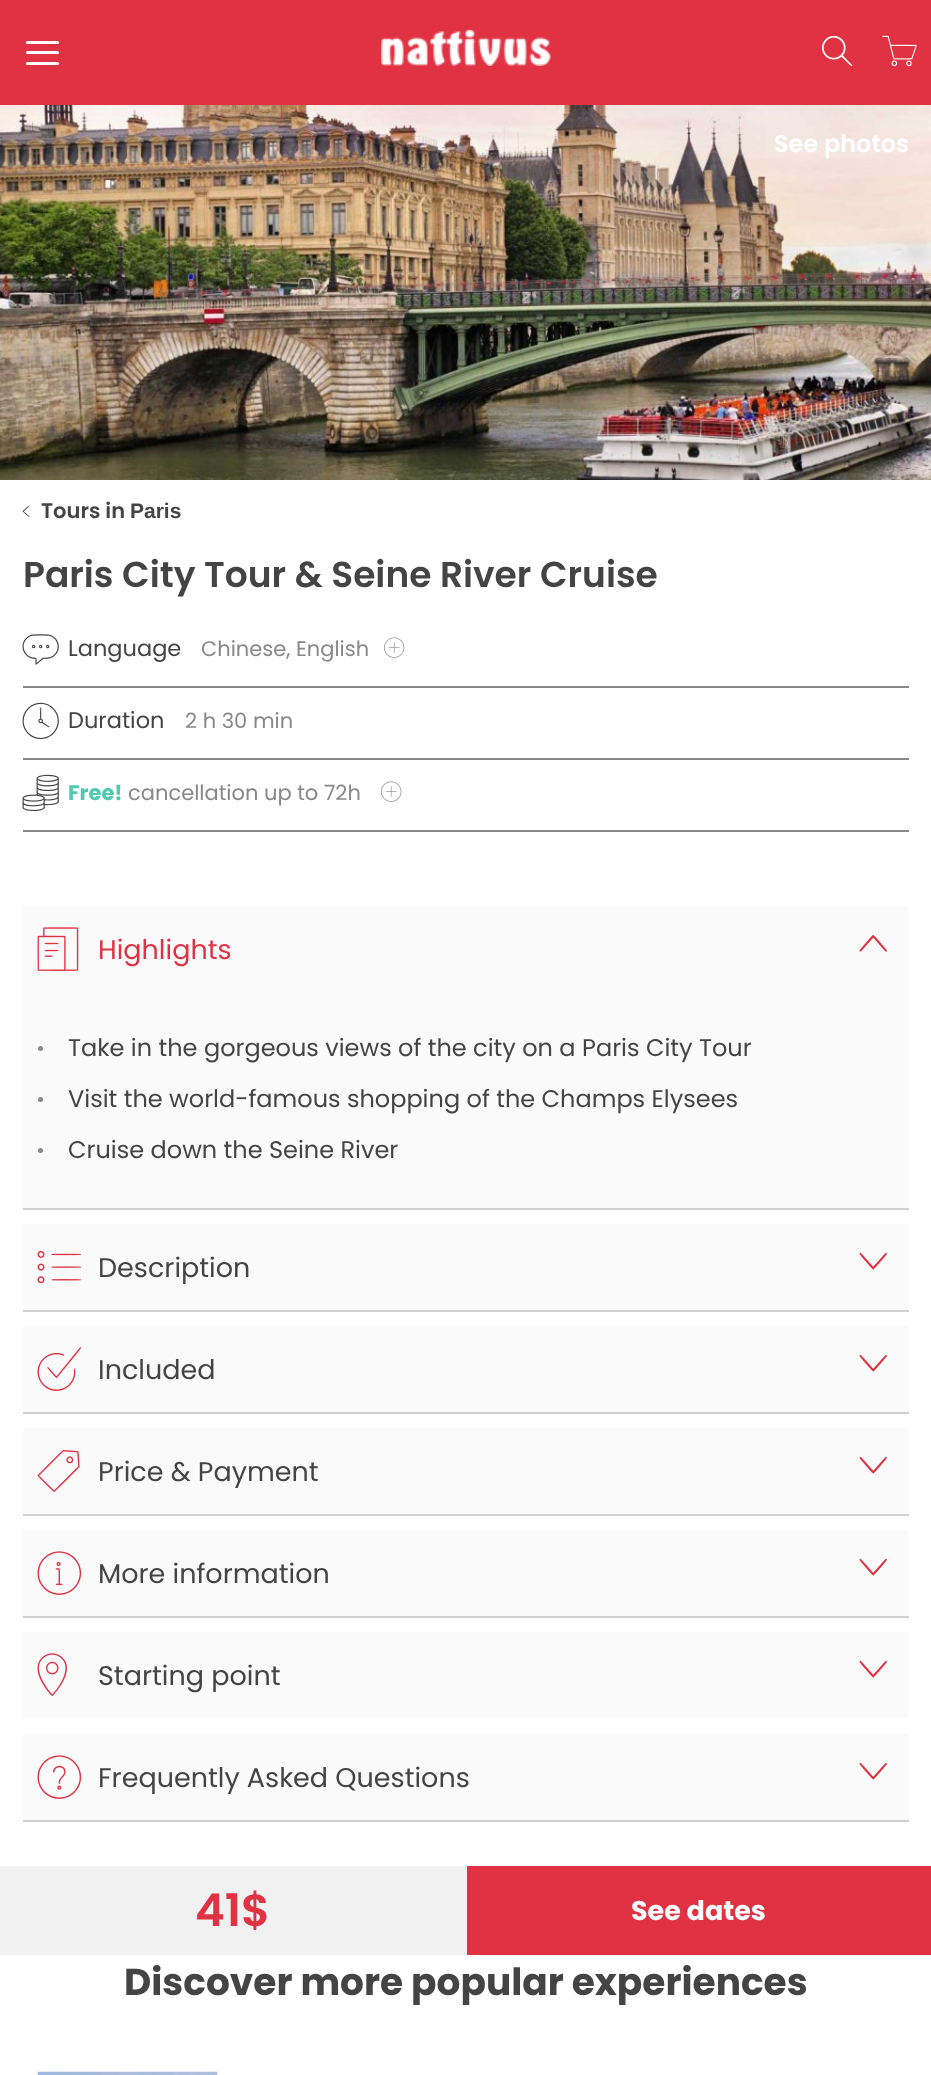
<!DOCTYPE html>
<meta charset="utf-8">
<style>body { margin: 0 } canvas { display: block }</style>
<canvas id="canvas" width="931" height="2075"></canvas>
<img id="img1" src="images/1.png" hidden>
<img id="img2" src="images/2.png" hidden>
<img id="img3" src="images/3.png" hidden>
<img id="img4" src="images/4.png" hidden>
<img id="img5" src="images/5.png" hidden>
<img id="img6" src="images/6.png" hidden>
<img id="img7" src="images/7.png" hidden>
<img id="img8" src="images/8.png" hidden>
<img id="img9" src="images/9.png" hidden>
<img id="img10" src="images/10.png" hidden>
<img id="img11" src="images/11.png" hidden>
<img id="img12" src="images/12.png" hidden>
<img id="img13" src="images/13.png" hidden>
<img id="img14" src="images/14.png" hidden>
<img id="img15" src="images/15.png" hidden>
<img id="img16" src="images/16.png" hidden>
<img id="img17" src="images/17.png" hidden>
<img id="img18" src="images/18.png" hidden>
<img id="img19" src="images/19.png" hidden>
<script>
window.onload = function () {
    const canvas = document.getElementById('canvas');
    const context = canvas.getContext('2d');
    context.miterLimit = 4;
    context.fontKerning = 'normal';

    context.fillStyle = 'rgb(255, 255, 255)';
    context.fillRect(0, 0, 931, 2075);
    context.fillStyle = 'rgb(224, 50, 67)';
    context.fillRect(0, 0, 931, 105);
    context.fillStyle = 'rgb(255, 255, 255)';
    context.beginPath();
    context.roundRect(26, 41, 33, 3, 1.5);
    context.fill();
    context.beginPath();
    context.roundRect(26, 51, 33, 3, 1.5);
    context.fill();
    context.beginPath();
    context.roundRect(26, 62, 33, 3, 1.5);
    context.fill();
    context.drawImage(document.getElementById('img1'), 381, 29, 170, 37);
    context.drawImage(document.getElementById('img2'), 822, 35, 31, 32);
    context.drawImage(document.getElementById('img3'), 882, 35, 35, 32);
    context.drawImage(document.getElementById('img4'), 0, 105, 931, 375);
    context.drawImage(document.getElementById('img5'), 22, 505, 8, 12);
    context.fillStyle = 'rgb(136, 136, 136)';
    context.fillRect(23, 686, 886, 2);
    context.drawImage(document.getElementById('img6'), 22, 634, 37, 31);
    context.drawImage(document.getElementById('img7'), 384, 637, 21, 21);
    context.fillRect(23, 758, 886, 2);
    context.drawImage(document.getElementById('img8'), 22, 702, 37, 38);
    context.fillRect(23, 830, 886, 2);
    context.drawImage(document.getElementById('img9'), 22, 774, 37, 37);
    context.drawImage(document.getElementById('img7'), 381, 781, 21, 21);
    context.fillStyle = 'rgb(250, 250, 250)';
    context.fillRect(23, 906, 886, 302);
    context.fillStyle = 'rgb(209, 209, 209)';
    context.fillRect(23, 1208, 886, 2);
    context.drawImage(document.getElementById('img10'), 37, 927, 42, 44);
    context.drawImage(document.getElementById('img11'), 859, 934, 28, 18);
    context.fillStyle = 'rgb(136, 136, 136)';
    context.beginPath();
    context.arc(40.5, 1048.5, 2.5, 0, 2 * Math.PI);
    context.fill();
    context.beginPath();
    context.arc(40.5, 1099.5, 2.5, 0, 2 * Math.PI);
    context.fill();
    context.beginPath();
    context.arc(40.5, 1150.5, 2.5, 0, 2 * Math.PI);
    context.fill();
    context.fillStyle = 'rgb(250, 250, 250)';
    context.fillRect(23, 1224, 886, 86);
    context.fillStyle = 'rgb(209, 209, 209)';
    context.fillRect(23, 1310, 886, 2);
    context.drawImage(document.getElementById('img12'), 37, 1250, 44, 34);
    context.drawImage(document.getElementById('img13'), 859, 1252, 28, 18);
    context.fillStyle = 'rgb(250, 250, 250)';
    context.fillRect(23, 1326, 886, 86);
    context.fillStyle = 'rgb(209, 209, 209)';
    context.fillRect(23, 1412, 886, 2);
    context.drawImage(document.getElementById('img14'), 37, 1347, 45, 44);
    context.drawImage(document.getElementById('img13'), 859, 1354, 28, 18);
    context.fillStyle = 'rgb(250, 250, 250)';
    context.fillRect(23, 1428, 886, 86);
    context.fillStyle = 'rgb(209, 209, 209)';
    context.fillRect(23, 1514, 886, 2);
    context.drawImage(document.getElementById('img15'), 37, 1450, 43, 43);
    context.drawImage(document.getElementById('img13'), 859, 1456, 28, 18);
    context.fillStyle = 'rgb(250, 250, 250)';
    context.fillRect(23, 1530, 886, 86);
    context.fillStyle = 'rgb(209, 209, 209)';
    context.fillRect(23, 1616, 886, 2);
    context.drawImage(document.getElementById('img16'), 37, 1551, 45, 44);
    context.drawImage(document.getElementById('img13'), 859, 1558, 28, 18);
    context.fillStyle = 'rgb(250, 250, 250)';
    context.fillRect(23, 1632, 886, 86);
    context.drawImage(document.getElementById('img17'), 37, 1653, 30, 44);
    context.drawImage(document.getElementById('img13'), 859, 1660, 28, 18);
    context.fillRect(23, 1734, 886, 86);
    context.fillStyle = 'rgb(209, 209, 209)';
    context.fillRect(23, 1820, 886, 2);
    context.drawImage(document.getElementById('img18'), 37, 1755, 45, 44);
    context.drawImage(document.getElementById('img13'), 859, 1762, 28, 18);
    context.fillStyle = 'rgb(241, 241, 241)';
    context.fillRect(0, 1866, 467, 89);
    context.fillStyle = 'rgb(224, 50, 67)';
    context.fillRect(467, 1866, 464, 89);
    context.drawImage(document.getElementById('img19'), 37, 2071, 181, 4);
    context.font = '600 24px Poppins';
    context.fillStyle = 'rgb(255, 255, 255)';
    context.fillText('See photos', 774, 152);
    context.font = '600 21px Poppins';
    context.fillStyle = 'rgb(68, 68, 68)';
    context.fillText('Tours in', 41, 518);
    context.font = 'bold 21px Liberation Sans';
    context.fillText('Paris', 130, 518);
    context.font = '600 36px Poppins';
    context.fillText('Paris City Tour & Seine River Cruise', 23, 587);
    context.font = '22.5px Poppins';
    context.fillText('Language', 68, 656);
    context.font = '21px Poppins';
    context.fillStyle = 'rgb(136, 136, 136)';
    context.fillText('Chinese, English', 201, 656);
    context.font = '22.5px Poppins';
    context.fillStyle = 'rgb(68, 68, 68)';
    context.fillText('Duration', 68, 728);
    context.font = '21px Poppins';
    context.fillStyle = 'rgb(136, 136, 136)';
    context.fillText('2 h 30 min', 185, 728);
    context.font = 'bold 21px Poppins';
    context.fillStyle = 'rgb(80, 201, 177)';
    context.fillText('Free!', 68, 800);
    context.font = '21px Poppins';
    context.fillStyle = 'rgb(136, 136, 136)';
    context.fillText('cancellation up to 72h', 128, 800);
    context.font = '27px Poppins';
    context.fillStyle = 'rgb(224, 50, 67)';
    context.fillText('Highlights', 98, 959);
    context.font = '24px Poppins';
    context.fillStyle = 'rgb(68, 68, 68)';
    context.fillText('Take in the gorgeous views of the city on a Paris City Tour', 68, 1056);
    context.fillText('Visit the world-famous shopping of the Champs Elysees', 68, 1107);
    context.fillText('Cruise down the Seine River', 68, 1158);
    context.font = '27px Poppins';
    context.fillText('Description', 98, 1277);
    context.fillText('Included', 98, 1379);
    context.fillText('Price & Payment', 98, 1481);
    context.fillText('More information', 98, 1583);
    context.fillText('Starting point', 98, 1685);
    context.fillText('Frequently Asked Questions', 98, 1787);
    context.font = '600 45px Poppins';
    context.fillStyle = 'rgb(224, 50, 67)';
    context.fillText('41$', 195, 1926);
    context.font = 'bold 27px Poppins';
    context.fillStyle = 'rgb(255, 255, 255)';
    context.fillText('See dates', 631, 1920);
    context.font = 'bold 37.5px Poppins';
    context.fillStyle = 'rgb(68, 68, 68)';
    context.fillText('Discover more popular experiences', 124, 1995);
};
</script>
